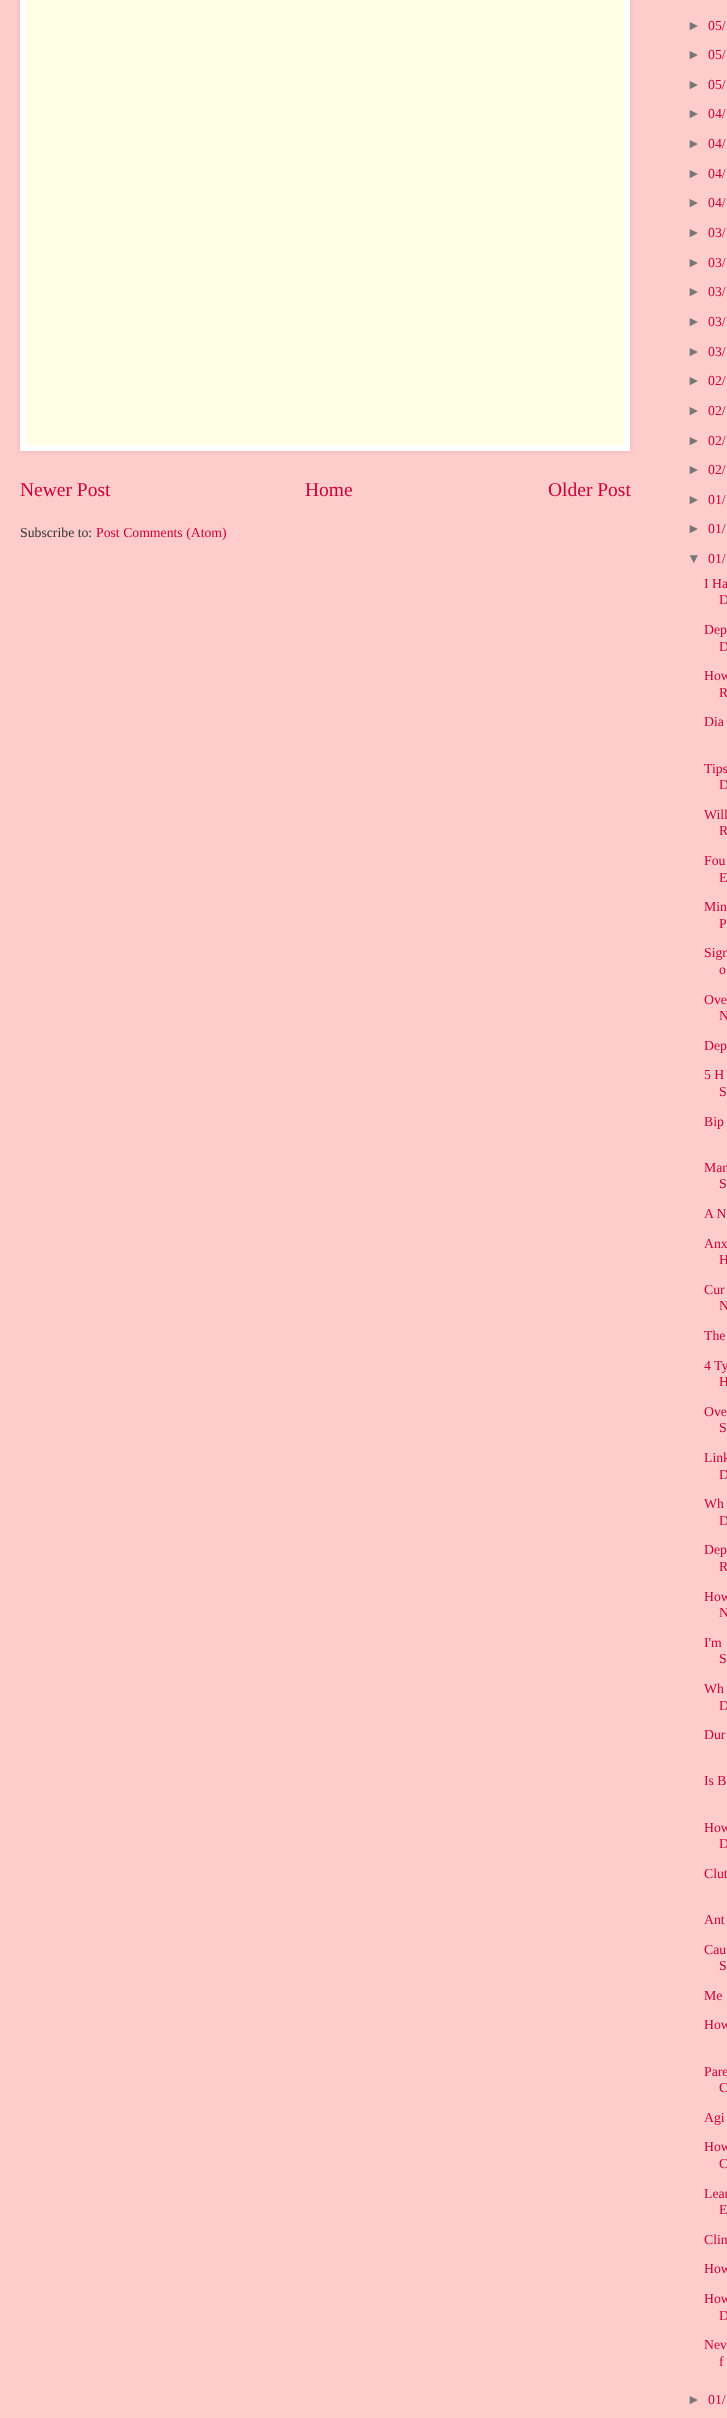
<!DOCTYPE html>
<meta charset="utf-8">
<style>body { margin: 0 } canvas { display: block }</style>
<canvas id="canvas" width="727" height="2418"></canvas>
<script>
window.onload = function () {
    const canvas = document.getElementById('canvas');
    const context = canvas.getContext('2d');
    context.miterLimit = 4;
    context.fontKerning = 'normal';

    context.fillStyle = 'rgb(255, 204, 204)';
    context.fillRect(0, 0, 727, 2418);
    context.fillStyle = 'rgba(0, 0, 0, 0.1)';
    context.filter = 'blur(2.5px)';
    context.beginPath();
    context.rect(20, -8, 610, 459);
    context.fill();
    context.filter = 'none';
    context.fillStyle = 'rgb(255, 255, 229)';
    context.beginPath();
    context.rect(23, -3, 604, 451);
    context.fill();
    context.strokeStyle = 'rgb(255, 255, 255)';
    context.lineWidth = 6;
    context.stroke();
    context.font = '19.5px Liberation Serif';
    context.fillStyle = 'rgb(204, 0, 51)';
    context.fillText('Newer Post', 20, 496);
    context.fillText('Home', 305, 496);
    context.fillText('Older Post', 548, 496);
    context.font = '13.75px Liberation Serif';
    context.fillStyle = 'rgb(51, 51, 51)';
    context.fillText('Subscribe to:', 20, 537);
    context.fillStyle = 'rgb(204, 0, 51)';
    context.fillText('Post Comments (Atom)', 96, 537);
    context.font = '13.75px Liberation Sans';
    context.fillStyle = 'rgb(119, 119, 119)';
    context.fillText('►', 687, 30);
    context.font = '13.75px Liberation Serif';
    context.fillStyle = 'rgb(204, 0, 51)';
    context.fillText('05/', 708, 30);
    context.font = '13.75px Liberation Sans';
    context.fillStyle = 'rgb(119, 119, 119)';
    context.fillText('►', 687, 59);
    context.font = '13.75px Liberation Serif';
    context.fillStyle = 'rgb(204, 0, 51)';
    context.fillText('05/', 708, 59);
    context.font = '13.75px Liberation Sans';
    context.fillStyle = 'rgb(119, 119, 119)';
    context.fillText('►', 687, 89);
    context.font = '13.75px Liberation Serif';
    context.fillStyle = 'rgb(204, 0, 51)';
    context.fillText('05/', 708, 89);
    context.font = '13.75px Liberation Sans';
    context.fillStyle = 'rgb(119, 119, 119)';
    context.fillText('►', 687, 118);
    context.font = '13.75px Liberation Serif';
    context.fillStyle = 'rgb(204, 0, 51)';
    context.fillText('04/', 708, 118);
    context.font = '13.75px Liberation Sans';
    context.fillStyle = 'rgb(119, 119, 119)';
    context.fillText('►', 687, 148);
    context.font = '13.75px Liberation Serif';
    context.fillStyle = 'rgb(204, 0, 51)';
    context.fillText('04/', 708, 148);
    context.font = '13.75px Liberation Sans';
    context.fillStyle = 'rgb(119, 119, 119)';
    context.fillText('►', 687, 178);
    context.font = '13.75px Liberation Serif';
    context.fillStyle = 'rgb(204, 0, 51)';
    context.fillText('04/', 708, 178);
    context.font = '13.75px Liberation Sans';
    context.fillStyle = 'rgb(119, 119, 119)';
    context.fillText('►', 687, 207);
    context.font = '13.75px Liberation Serif';
    context.fillStyle = 'rgb(204, 0, 51)';
    context.fillText('04/', 708, 207);
    context.font = '13.75px Liberation Sans';
    context.fillStyle = 'rgb(119, 119, 119)';
    context.fillText('►', 687, 237);
    context.font = '13.75px Liberation Serif';
    context.fillStyle = 'rgb(204, 0, 51)';
    context.fillText('03/', 708, 237);
    context.font = '13.75px Liberation Sans';
    context.fillStyle = 'rgb(119, 119, 119)';
    context.fillText('►', 687, 267);
    context.font = '13.75px Liberation Serif';
    context.fillStyle = 'rgb(204, 0, 51)';
    context.fillText('03/', 708, 267);
    context.font = '13.75px Liberation Sans';
    context.fillStyle = 'rgb(119, 119, 119)';
    context.fillText('►', 687, 296);
    context.font = '13.75px Liberation Serif';
    context.fillStyle = 'rgb(204, 0, 51)';
    context.fillText('03/', 708, 296);
    context.font = '13.75px Liberation Sans';
    context.fillStyle = 'rgb(119, 119, 119)';
    context.fillText('►', 687, 326);
    context.font = '13.75px Liberation Serif';
    context.fillStyle = 'rgb(204, 0, 51)';
    context.fillText('03/', 708, 326);
    context.font = '13.75px Liberation Sans';
    context.fillStyle = 'rgb(119, 119, 119)';
    context.fillText('►', 687, 356);
    context.font = '13.75px Liberation Serif';
    context.fillStyle = 'rgb(204, 0, 51)';
    context.fillText('03/', 708, 356);
    context.font = '13.75px Liberation Sans';
    context.fillStyle = 'rgb(119, 119, 119)';
    context.fillText('►', 687, 385);
    context.font = '13.75px Liberation Serif';
    context.fillStyle = 'rgb(204, 0, 51)';
    context.fillText('02/', 708, 385);
    context.font = '13.75px Liberation Sans';
    context.fillStyle = 'rgb(119, 119, 119)';
    context.fillText('►', 687, 415);
    context.font = '13.75px Liberation Serif';
    context.fillStyle = 'rgb(204, 0, 51)';
    context.fillText('02/', 708, 415);
    context.font = '13.75px Liberation Sans';
    context.fillStyle = 'rgb(119, 119, 119)';
    context.fillText('►', 687, 445);
    context.font = '13.75px Liberation Serif';
    context.fillStyle = 'rgb(204, 0, 51)';
    context.fillText('02/', 708, 445);
    context.font = '13.75px Liberation Sans';
    context.fillStyle = 'rgb(119, 119, 119)';
    context.fillText('►', 687, 474);
    context.font = '13.75px Liberation Serif';
    context.fillStyle = 'rgb(204, 0, 51)';
    context.fillText('02/', 708, 474);
    context.font = '13.75px Liberation Sans';
    context.fillStyle = 'rgb(119, 119, 119)';
    context.fillText('►', 687, 504);
    context.font = '13.75px Liberation Serif';
    context.fillStyle = 'rgb(204, 0, 51)';
    context.fillText('01/', 708, 504);
    context.font = '13.75px Liberation Sans';
    context.fillStyle = 'rgb(119, 119, 119)';
    context.fillText('►', 687, 533);
    context.font = '13.75px Liberation Serif';
    context.fillStyle = 'rgb(204, 0, 51)';
    context.fillText('01/', 708, 533);
    context.font = '13.75px Liberation Sans';
    context.fillStyle = 'rgb(119, 119, 119)';
    context.fillText('▼', 687, 563);
    context.font = '13.75px Liberation Serif';
    context.fillStyle = 'rgb(204, 0, 51)';
    context.fillText('01/', 708, 563);
    context.fillText('I Ha', 704, 588);
    context.fillText('D', 719, 604);
    context.fillText('Dep', 704, 634);
    context.fillText('D', 719, 651);
    context.fillText('How', 704, 680);
    context.fillText('R', 719, 697);
    context.fillText('Dia', 704, 726);
    context.fillText('Tips', 704, 773);
    context.fillText('D', 719, 789);
    context.fillText('Will', 704, 819);
    context.fillText('R', 719, 835);
    context.fillText('Fou', 704, 865);
    context.fillText('E', 719, 882);
    context.fillText('Min', 704, 911);
    context.fillText('P', 719, 928);
    context.fillText('Sign', 704, 957);
    context.fillText('o', 719, 974);
    context.fillText('Ove', 704, 1004);
    context.fillText('N', 719, 1020);
    context.fillText('Dep', 704, 1050);
    context.fillText('5 H', 704, 1079);
    context.fillText('S', 719, 1096);
    context.fillText('Bip', 704, 1126);
    context.fillText('Man', 704, 1172);
    context.fillText('S', 719, 1188);
    context.fillText('A N', 704, 1218);
    context.fillText('Anx', 704, 1248);
    context.fillText('H', 719, 1264);
    context.fillText('Cur', 704, 1294);
    context.fillText('N', 719, 1310);
    context.fillText('The', 704, 1340);
    context.fillText('4 Ty', 704, 1370);
    context.fillText('H', 719, 1386);
    context.fillText('Ove', 704, 1416);
    context.fillText('S', 719, 1432);
    context.fillText('Link', 704, 1462);
    context.fillText('D', 719, 1479);
    context.fillText('Wh', 704, 1508);
    context.fillText('D', 719, 1525);
    context.fillText('Dep', 704, 1554);
    context.fillText('R', 719, 1571);
    context.fillText('How', 704, 1601);
    context.fillText('N', 719, 1617);
    context.fillText('I\'m', 704, 1647);
    context.fillText('S', 719, 1663);
    context.fillText('Wh', 704, 1693);
    context.fillText('D', 719, 1710);
    context.fillText('Dur', 704, 1739);
    context.fillText('Is B', 704, 1785);
    context.fillText('How', 704, 1832);
    context.fillText('D', 719, 1848);
    context.fillText('Clut', 704, 1878);
    context.fillText('Ant', 704, 1924);
    context.fillText('Cau', 704, 1954);
    context.fillText('S', 719, 1970);
    context.fillText('Me', 704, 2000);
    context.fillText('How', 704, 2029);
    context.fillText('Pare', 704, 2076);
    context.fillText('C', 719, 2092);
    context.fillText('Agi', 704, 2122);
    context.fillText('How', 704, 2151);
    context.fillText('C', 719, 2168);
    context.fillText('Lear', 704, 2198);
    context.fillText('E', 719, 2214);
    context.fillText('Clin', 704, 2244);
    context.fillText('How', 704, 2273);
    context.fillText('How', 704, 2303);
    context.fillText('D', 719, 2320);
    context.fillText('Nev', 704, 2349);
    context.fillText('f', 719, 2366);
    context.font = '13.75px Liberation Sans';
    context.fillStyle = 'rgb(119, 119, 119)';
    context.fillText('►', 687, 2404);
    context.font = '13.75px Liberation Serif';
    context.fillStyle = 'rgb(204, 0, 51)';
    context.fillText('01/', 708, 2404);
};
</script>
